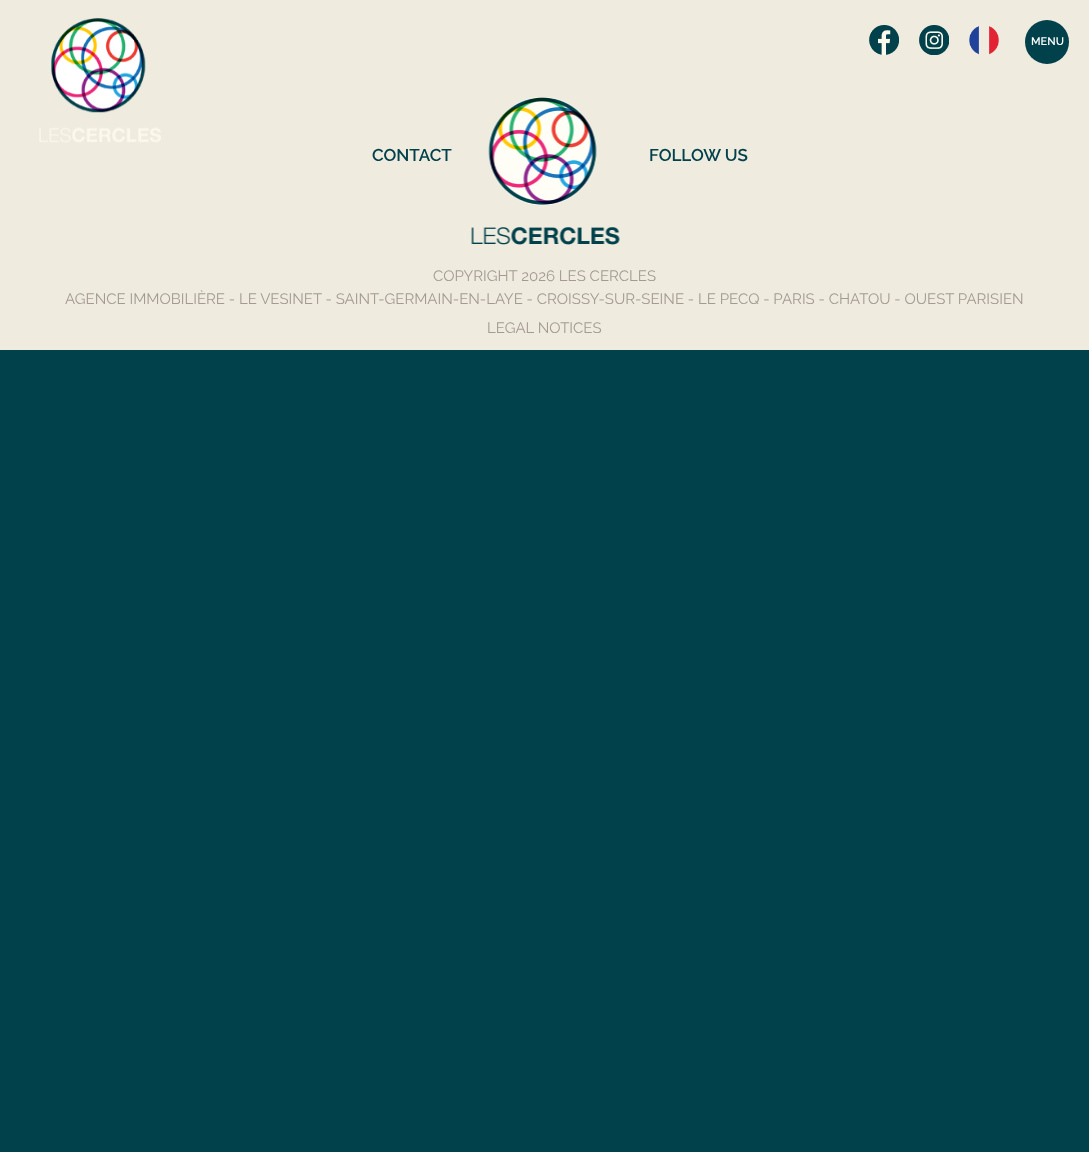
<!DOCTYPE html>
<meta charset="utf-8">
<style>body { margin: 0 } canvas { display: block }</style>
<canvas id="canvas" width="1089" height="1152"></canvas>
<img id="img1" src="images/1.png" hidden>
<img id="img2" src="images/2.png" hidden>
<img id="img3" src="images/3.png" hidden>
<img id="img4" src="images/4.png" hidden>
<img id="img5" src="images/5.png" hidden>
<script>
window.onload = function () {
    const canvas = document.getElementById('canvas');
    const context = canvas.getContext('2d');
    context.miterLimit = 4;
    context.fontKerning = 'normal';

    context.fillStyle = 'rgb(0, 65, 75)';
    context.fillRect(0, 0, 1089, 1152);
    context.fillStyle = 'rgb(239, 235, 223)';
    context.fillRect(0, 0, 1089, 350);
    context.drawImage(document.getElementById('img1'), 39, 18, 122, 125);
    context.drawImage(document.getElementById('img2'), 869, 25, 30, 30);
    context.drawImage(document.getElementById('img3'), 919, 25, 30, 30);
    context.drawImage(document.getElementById('img4'), 969, 26, 30, 29);
    context.fillStyle = 'rgb(0, 65, 75)';
    context.beginPath();
    context.arc(1047, 42, 22, 0, 2 * Math.PI);
    context.fill();
    context.drawImage(document.getElementById('img5'), 471, 97, 149, 148);
    context.font = '600 11px Raleway';
    context.fillStyle = 'rgb(255, 255, 255)';
    context.fillText('MENU', 1031, 45);
    context.font = '600 17px Raleway';
    context.fillStyle = 'rgb(0, 65, 75)';
    context.fillText('CONTACT', 372, 161);
    context.fillText('FOLLOW US', 649, 161);
    context.font = '15px Raleway';
    context.fillStyle = 'rgb(163, 154, 147)';
    context.fillText('COPYRIGHT 2026 LES CERCLES', 433, 281);
    context.fillText('AGENCE IMMOBILIÈRE - LE VESINET - SAINT-GERMAIN-EN-LAYE - CROISSY-SUR-SEINE - LE PECQ - PARIS - CHATOU - OUEST PARISIEN', 65, 304);
    context.fillText('LEGAL NOTICES', 487, 333);
};
</script>
